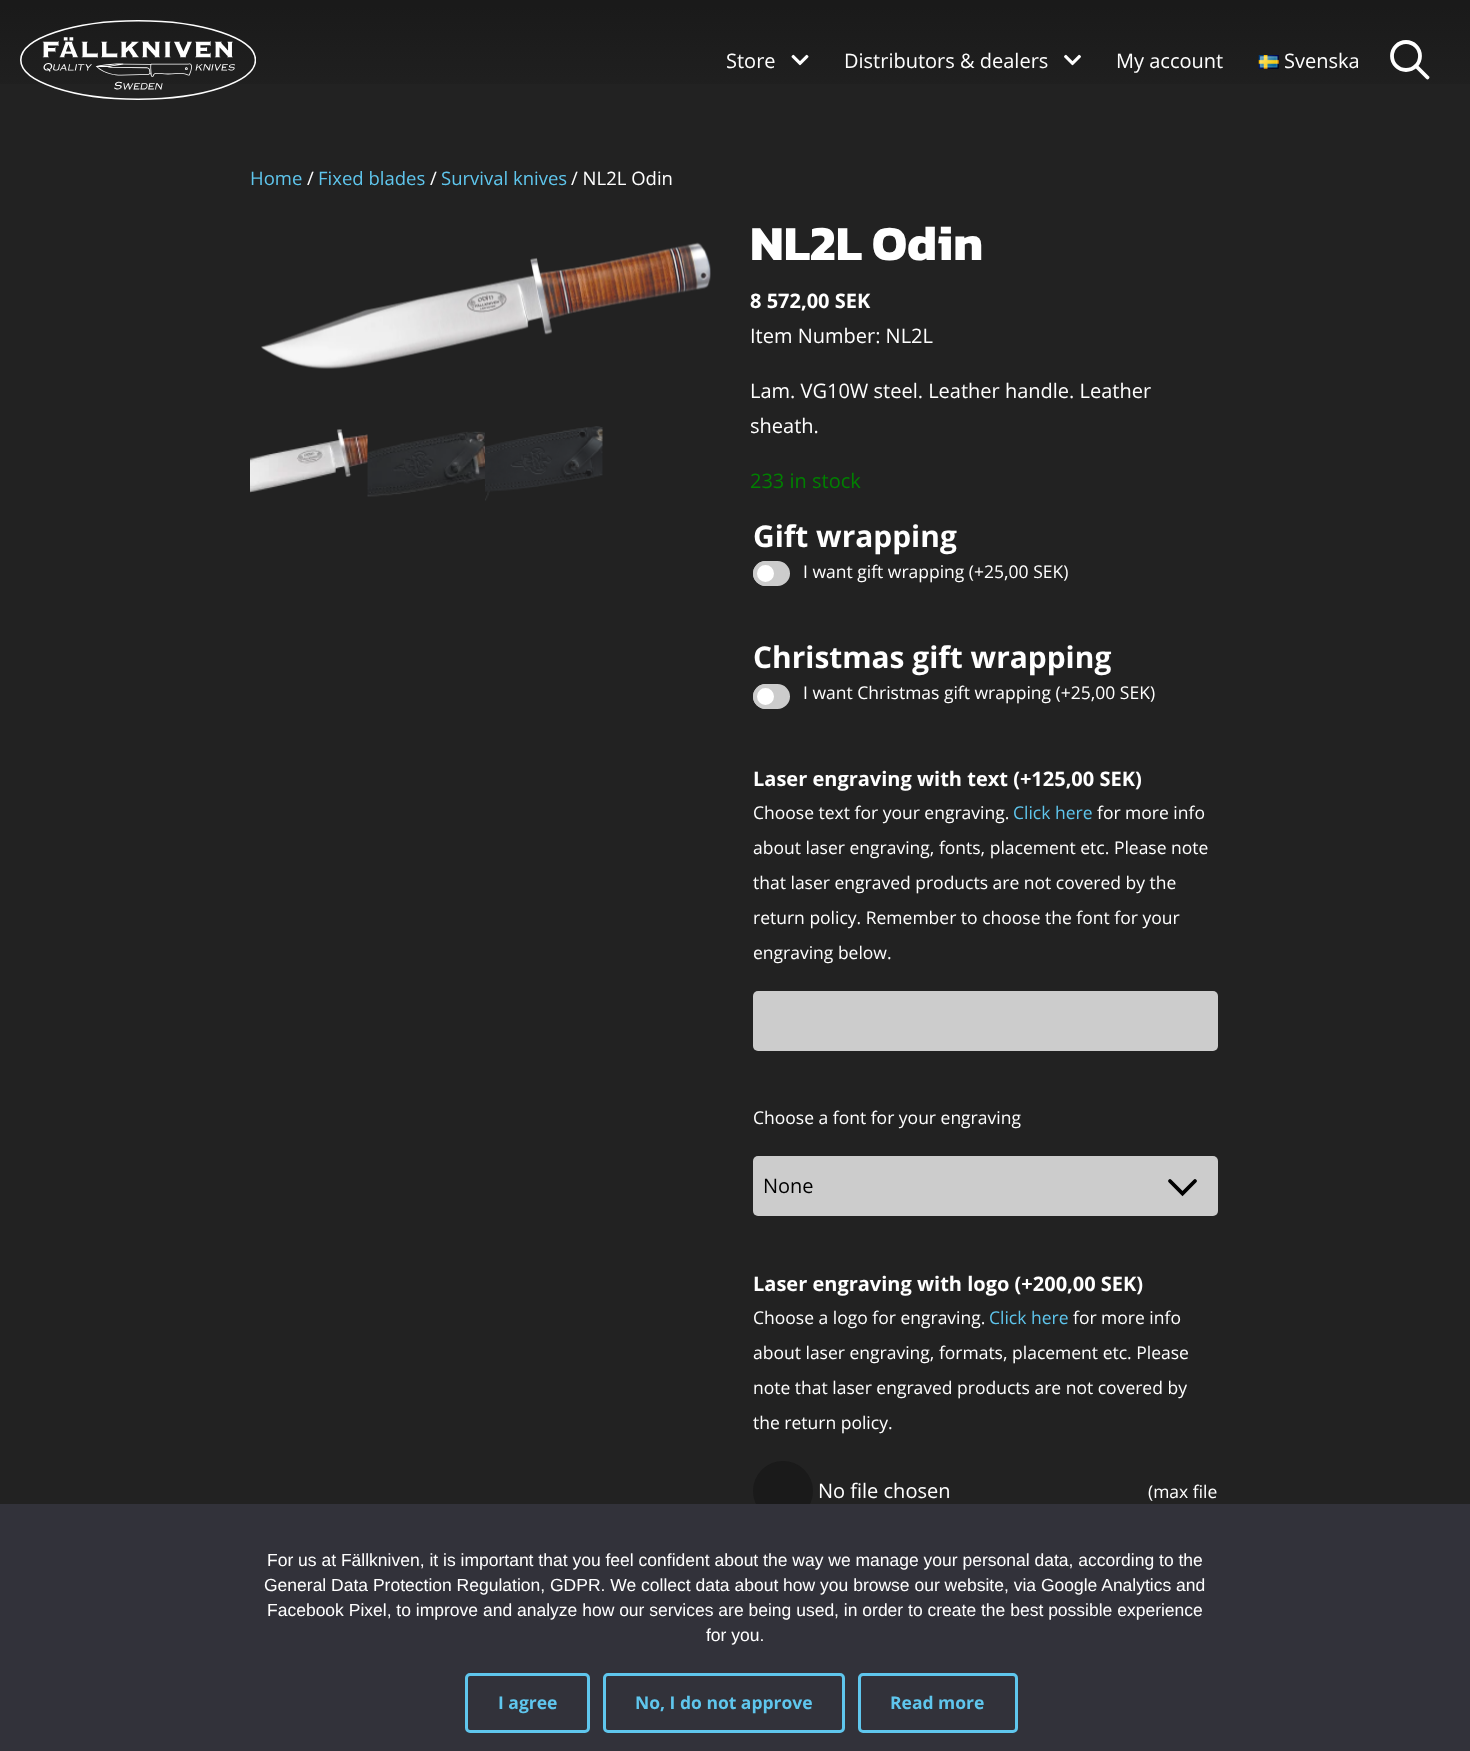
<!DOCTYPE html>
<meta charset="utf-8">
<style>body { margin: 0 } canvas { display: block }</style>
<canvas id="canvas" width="1470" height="1751"></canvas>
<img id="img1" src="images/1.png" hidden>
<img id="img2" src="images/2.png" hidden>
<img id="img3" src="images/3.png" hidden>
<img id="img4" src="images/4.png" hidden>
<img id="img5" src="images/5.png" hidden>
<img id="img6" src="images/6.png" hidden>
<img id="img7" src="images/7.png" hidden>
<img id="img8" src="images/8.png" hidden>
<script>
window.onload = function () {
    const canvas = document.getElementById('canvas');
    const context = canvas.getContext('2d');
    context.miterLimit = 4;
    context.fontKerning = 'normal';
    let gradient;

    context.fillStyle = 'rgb(34, 34, 34)';
    context.fillRect(0, 0, 1470, 1751);
    gradient = context.createLinearGradient(735, 120, 735, 0);
    gradient.addColorStop(0, 'rgb(34, 34, 34)');
    gradient.addColorStop(0.95, 'rgb(26, 26, 26)');
    context.fillStyle = gradient;
    context.fillRect(0, 0, 1470, 84);
    context.drawImage(document.getElementById('img1'), 20, 20, 236, 80);
    context.drawImage(document.getElementById('img2'), 791, 54, 18, 12);
    context.drawImage(document.getElementById('img3'), 1064, 54, 17, 12);
    context.drawImage(document.getElementById('img4'), 1258, 55, 21, 14);
    context.beginPath();
    context.arc(1406, 56, 14, 0, 2 * Math.PI);
    context.strokeStyle = 'rgb(255, 255, 255)';
    context.lineWidth = 3.8;
    context.stroke();
    context.beginPath();
    context.moveTo(1427.5, 77.5);
    context.lineTo(1416, 66);
    context.lineCap = 'round';
    context.stroke();
    context.drawImage(document.getElementById('img5'), 261, 242, 450, 127);
    context.drawImage(document.getElementById('img6'), 250, 429, 118, 64);
    context.drawImage(document.getElementById('img7'), 367, 431, 118, 66);
    context.drawImage(document.getElementById('img8'), 485, 426, 118, 75);
    context.fillStyle = 'rgb(204, 204, 204)';
    context.beginPath();
    context.roundRect(755, 563, 33, 21, 10.5);
    context.fill();
    context.strokeStyle = 'rgb(204, 204, 204)';
    context.lineWidth = 4;
    context.stroke();
    context.fillStyle = 'rgb(255, 255, 255)';
    context.beginPath();
    context.arc(765.5, 573.5, 10.5, 0, 2 * Math.PI);
    context.fill();
    context.stroke();
    context.fillStyle = 'rgb(204, 204, 204)';
    context.beginPath();
    context.roundRect(755, 686, 33, 21, 10.5);
    context.fill();
    context.stroke();
    context.fillStyle = 'rgb(255, 255, 255)';
    context.beginPath();
    context.arc(765.5, 696.5, 10.5, 0, 2 * Math.PI);
    context.fill();
    context.stroke();
    context.fillStyle = 'rgb(204, 204, 204)';
    context.beginPath();
    context.roundRect(753, 991, 465, 60, 5);
    context.fill();
    context.beginPath();
    context.roundRect(753, 1156, 465, 60, 5);
    context.fill();
    context.beginPath();
    context.moveTo(1170, 1181);
    context.lineTo(1182.5, 1193.5);
    context.lineTo(1195, 1181);
    context.strokeStyle = 'rgb(0, 0, 0)';
    context.lineWidth = 3.8;
    context.stroke();
    context.fillStyle = 'rgb(26, 26, 26)';
    context.beginPath();
    context.arc(783, 1491, 30, 0, 2 * Math.PI);
    context.fill();
    context.fillStyle = 'rgb(50, 50, 58)';
    context.fillRect(0, 1504, 1470, 247);
    context.beginPath();
    context.roundRect(466.5, 1674.5, 122, 57, 3.5);
    context.strokeStyle = 'rgb(95, 198, 237)';
    context.lineWidth = 3;
    context.stroke();
    context.beginPath();
    context.roundRect(604.5, 1674.5, 239, 57, 3.5);
    context.stroke();
    context.beginPath();
    context.roundRect(859.5, 1674.5, 157, 57, 3.5);
    context.stroke();
    context.font = '20px Open Sans';
    context.fillStyle = 'rgb(255, 255, 255)';
    context.fillText('Store', 726, 68);
    context.fillText('Distributors & dealers', 844, 68);
    context.fillText('My account', 1116, 68);
    context.fillText('Svenska', 1284, 68);
    context.font = '18.5px Open Sans';
    context.fillStyle = 'rgb(95, 198, 237)';
    context.fillText('Home', 250, 185);
    context.fillStyle = 'rgb(255, 255, 255)';
    context.fillText('/', 307, 185);
    context.fillStyle = 'rgb(95, 198, 237)';
    context.fillText('Fixed blades', 318, 185);
    context.fillStyle = 'rgb(255, 255, 255)';
    context.fillText('/', 430, 185);
    context.fillStyle = 'rgb(95, 198, 237)';
    context.fillText('Survival knives', 441, 185);
    context.fillStyle = 'rgb(255, 255, 255)';
    context.fillText('/ NL2L Odin', 571, 185);
    context.font = 'bold 49.5px Kanit';
    context.fillText('NL2L Odin', 750, 260);
    context.font = 'bold 20px Open Sans';
    context.fillText('8 572,00 SEK', 750, 308);
    context.font = '20px Open Sans';
    context.fillText('Item Number: NL2L', 750, 343);
    context.fillText('Lam. VG10W steel. Leather handle. Leather', 750, 398);
    context.fillText('sheath.', 750, 433);
    context.fillStyle = 'rgb(0, 128, 0)';
    context.fillText('233 in stock', 750, 488);
    context.font = 'bold 29.9px Open Sans';
    context.fillStyle = 'rgb(255, 255, 255)';
    context.fillText('Gift wrapping', 753, 547);
    context.font = '17.5px Open Sans';
    context.fillText('I want gift wrapping (+25,00 SEK)', 803, 578);
    context.font = 'bold 29.9px Open Sans';
    context.fillText('Christmas gift wrapping', 753, 668);
    context.font = '17.5px Open Sans';
    context.fillText('I want Christmas gift wrapping (+25,00 SEK)', 803, 699);
    context.font = 'bold 20px Open Sans';
    context.fillText('Laser engraving with text (+125,00 SEK)', 753, 786);
    context.font = '17.5px Open Sans';
    context.fillText('Choose text for your engraving.', 753, 819);
    context.fillStyle = 'rgb(95, 198, 237)';
    context.fillText('Click here', 1013, 819);
    context.fillStyle = 'rgb(255, 255, 255)';
    context.fillText('for more info', 1097, 819);
    context.fillText('about laser engraving, fonts, placement etc. Please note', 753, 854);
    context.fillText('that laser engraved products are not covered by the', 753, 889);
    context.fillText('return policy. Remember to choose the font for your', 753, 924);
    context.fillText('engraving below.', 753, 959);
    context.fillText('Choose a font for your engraving', 753, 1124);
    context.font = '20px Open Sans';
    context.fillStyle = 'rgb(0, 0, 0)';
    context.fillText('None', 763, 1193);
    context.font = 'bold 20px Open Sans';
    context.fillStyle = 'rgb(255, 255, 255)';
    context.fillText('Laser engraving with logo (+200,00 SEK)', 753, 1291);
    context.font = '17.5px Open Sans';
    context.fillText('Choose a logo for engraving.', 753, 1324);
    context.fillStyle = 'rgb(95, 198, 237)';
    context.fillText('Click here', 989, 1324);
    context.fillStyle = 'rgb(255, 255, 255)';
    context.fillText('for more info', 1073, 1324);
    context.fillText('about laser engraving, formats, placement etc. Please', 753, 1359);
    context.fillText('note that laser engraved products are not covered by', 753, 1394);
    context.fillText('the return policy.', 753, 1429);
    context.font = '20px Open Sans';
    context.fillText('No file chosen', 818, 1498);
    context.font = '17.5px Open Sans';
    context.fillText('(max file', 1148, 1498);
    context.font = '17.5px Liberation Sans';
    context.fillText('For us at Fällkniven, it is important that you feel confident about the way we manage your personal data, according to the', 267, 1566);
    context.fillText('General Data Protection Regulation, GDPR. We collect data about how you browse our website, via Google Analytics and', 264, 1591);
    context.fillText('Facebook Pixel, to improve and analyze how our services are being used, in order to create the best possible experience', 267, 1616);
    context.fillText('for you.', 706, 1641);
    context.font = 'bold 17.5px Open Sans';
    context.fillStyle = 'rgb(95, 198, 237)';
    context.fillText('I agree', 498, 1709);
    context.fillText('No, I do not approve', 635, 1709);
    context.fillText('Read more', 890, 1709);
};
</script>
